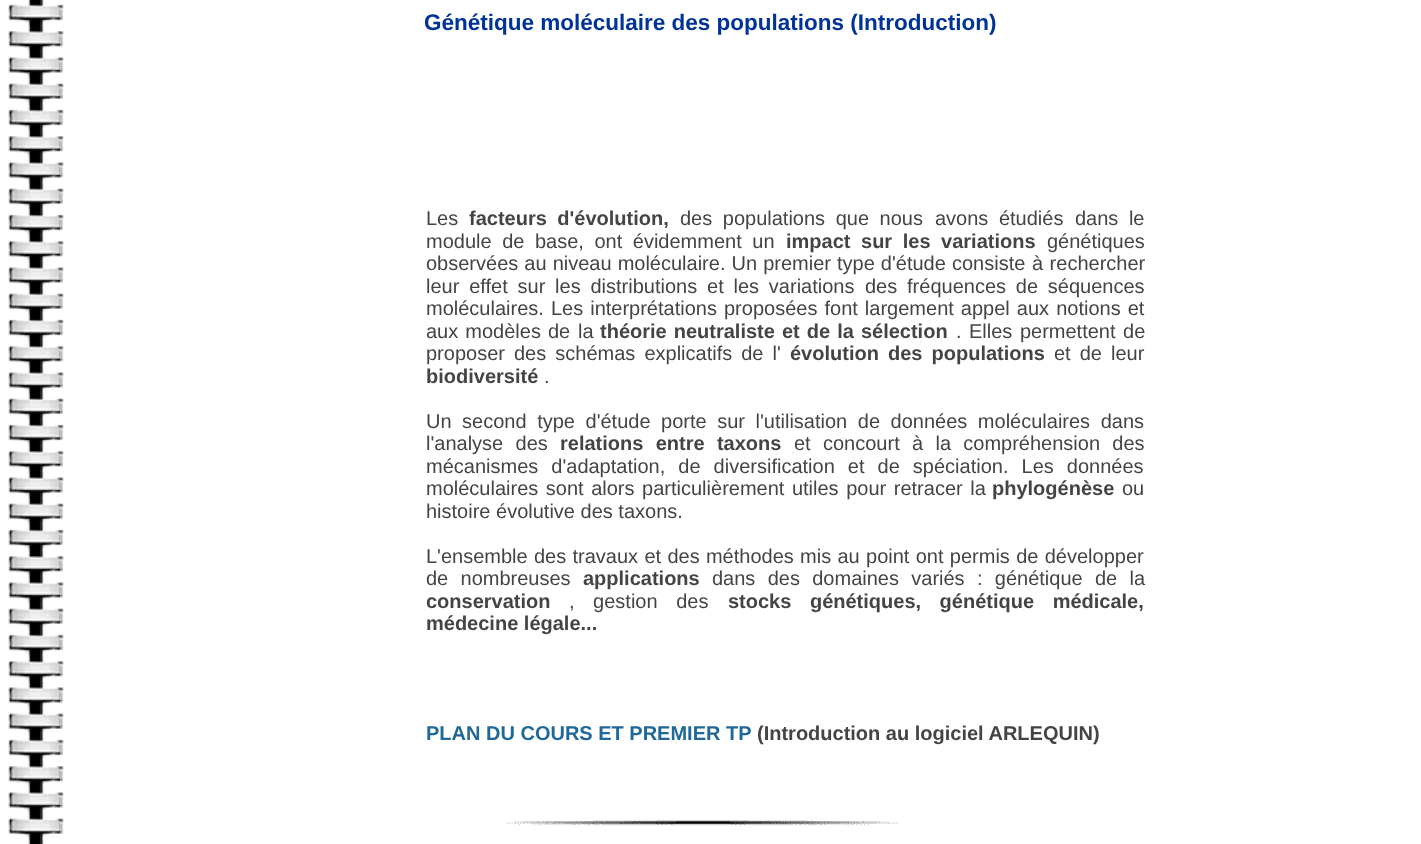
<!DOCTYPE html>
<meta charset="utf-8">
<style>body { margin: 0 } canvas { display: block }</style>
<canvas id="canvas" width="1421" height="844"></canvas>
<img id="img1" src="images/1.png" hidden>
<img id="img2" src="images/2.png" hidden>
<script>
window.onload = function () {
    const canvas = document.getElementById('canvas');
    const context = canvas.getContext('2d');
    context.miterLimit = 4;
    context.fontKerning = 'normal';

    context.fillStyle = 'rgb(255, 255, 255)';
    context.fillRect(0, 0, 1421, 844);
    context.drawImage(document.getElementById('img1'), 8, 0, 56, 844);
    context.drawImage(document.getElementById('img2'), 506, 820, 392, 6);
    context.font = 'bold 22.5px Liberation Sans';
    context.fillStyle = 'rgb(0, 51, 153)';
    context.fillText('Génétique moléculaire des populations (Introduction)', 424, 30);
    context.font = '20px Liberation Sans';
    context.fillStyle = 'rgb(68, 68, 68)';
    context.fillText('Les', 426, 225);
    context.wordSpacing = '5px';
    context.font = 'bold 20px Liberation Sans';
    context.fillText('facteurs d\'évolution,', 469, 225);
    context.font = '20px Liberation Sans';
    context.fillText('des populations que nous', 680, 225);
    context.fillText('avons étudiés', 935, 225);
    context.fillText('dans le', 1075, 225);
    context.fillText('module de base, ont évidemment un', 426, 248);
    context.font = 'bold 20px Liberation Sans';
    context.fillText('impact sur les variations', 786, 248);
    context.wordSpacing = '0px';
    context.font = '20px Liberation Sans';
    context.fillText('génétiques', 1047, 248);
    context.wordSpacing = '0.5px';
    context.fillText('observées au niveau moléculaire. Un premier type d\'étude', 426, 270);
    context.wordSpacing = '1px';
    context.fillText('consiste à rechercher', 952, 270);
    context.wordSpacing = '4.25px';
    context.fillText('leur effet sur les distributions et les variations', 426, 293);
    context.fillText('des fréquences de séquences', 865, 293);
    context.wordSpacing = '1.5px';
    context.fillText('moléculaires. Les interprétations', 426, 315);
    context.fillText('proposées font largement appel aux notions et', 724, 315);
    context.fillText('aux modèles de', 426, 338);
    context.wordSpacing = '0px';
    context.fillText('la', 578, 338);
    context.wordSpacing = '1.5px';
    context.font = 'bold 20px Liberation Sans';
    context.fillText('théorie neutraliste et de la sélection', 600, 338);
    context.wordSpacing = '0px';
    context.font = '20px Liberation Sans';
    context.fillText('.', 956, 338);
    context.wordSpacing = '2px';
    context.fillText('Elles permettent de', 969, 338);
    context.wordSpacing = '3.5px';
    context.fillText('proposer des schémas explicatifs de l\'', 426, 360);
    context.wordSpacing = '0px';
    context.font = 'bold 20px Liberation Sans';
    context.fillText('évolution', 790, 360);
    context.wordSpacing = '3.5px';
    context.fillText('des populations', 888, 360);
    context.font = '20px Liberation Sans';
    context.fillText('et de leur', 1054, 360);
    context.wordSpacing = '0px';
    context.font = 'bold 20px Liberation Sans';
    context.fillText('biodiversité', 426, 383);
    context.font = '20px Liberation Sans';
    context.fillText('.', 544, 383);
    context.wordSpacing = '5px';
    context.fillText('Un second type d\'étude porte sur l\'utilisation de données moléculaires dans', 426, 428);
    context.wordSpacing = '6.75px';
    context.fillText('l\'analyse des', 426, 450);
    context.font = 'bold 20px Liberation Sans';
    context.fillText('relations entre taxons', 560, 450);
    context.font = '20px Liberation Sans';
    context.fillText('et concourt à la compréhension des', 794, 450);
    context.wordSpacing = '7.5px';
    context.fillText('mécanismes d\'adaptation, de diversification et de spéciation. Les données', 426, 473);
    context.wordSpacing = '2px';
    context.fillText('moléculaires sont alors particulièrement utiles pour retracer la', 426, 495);
    context.wordSpacing = '0px';
    context.font = 'bold 20px Liberation Sans';
    context.fillText('phylogénèse', 992, 495);
    context.font = '20px Liberation Sans';
    context.fillText('ou', 1122, 495);
    context.fillText('histoire évolutive des taxons.', 426, 518);
    context.wordSpacing = '0.75px';
    context.fillText('L\'ensemble des travaux et des méthodes mis au point ont permis de développer', 426, 563);
    context.wordSpacing = '6.75px';
    context.fillText('de nombreuses', 426, 585);
    context.wordSpacing = '0px';
    context.font = 'bold 20px Liberation Sans';
    context.fillText('applications', 583, 585);
    context.wordSpacing = '6.75px';
    context.font = '20px Liberation Sans';
    context.fillText('dans des domaines variés : génétique de la', 712, 585);
    context.wordSpacing = '0px';
    context.font = 'bold 20px Liberation Sans';
    context.fillText('conservation', 426, 608);
    context.wordSpacing = '13px';
    context.font = '20px Liberation Sans';
    context.fillText(', gestion des', 569, 608);
    context.font = 'bold 20px Liberation Sans';
    context.fillText('stocks génétiques, génétique médicale,', 728, 608);
    context.wordSpacing = '0px';
    context.fillText('médecine légale...', 426, 630);
    context.fillStyle = 'rgb(32, 104, 152)';
    context.fillText('PLAN DU COURS ET PREMIER TP', 426, 740);
    context.fillStyle = 'rgb(68, 68, 68)';
    context.fillText('(Introduction au logiciel ARLEQUIN)', 757, 740);
};
</script>
